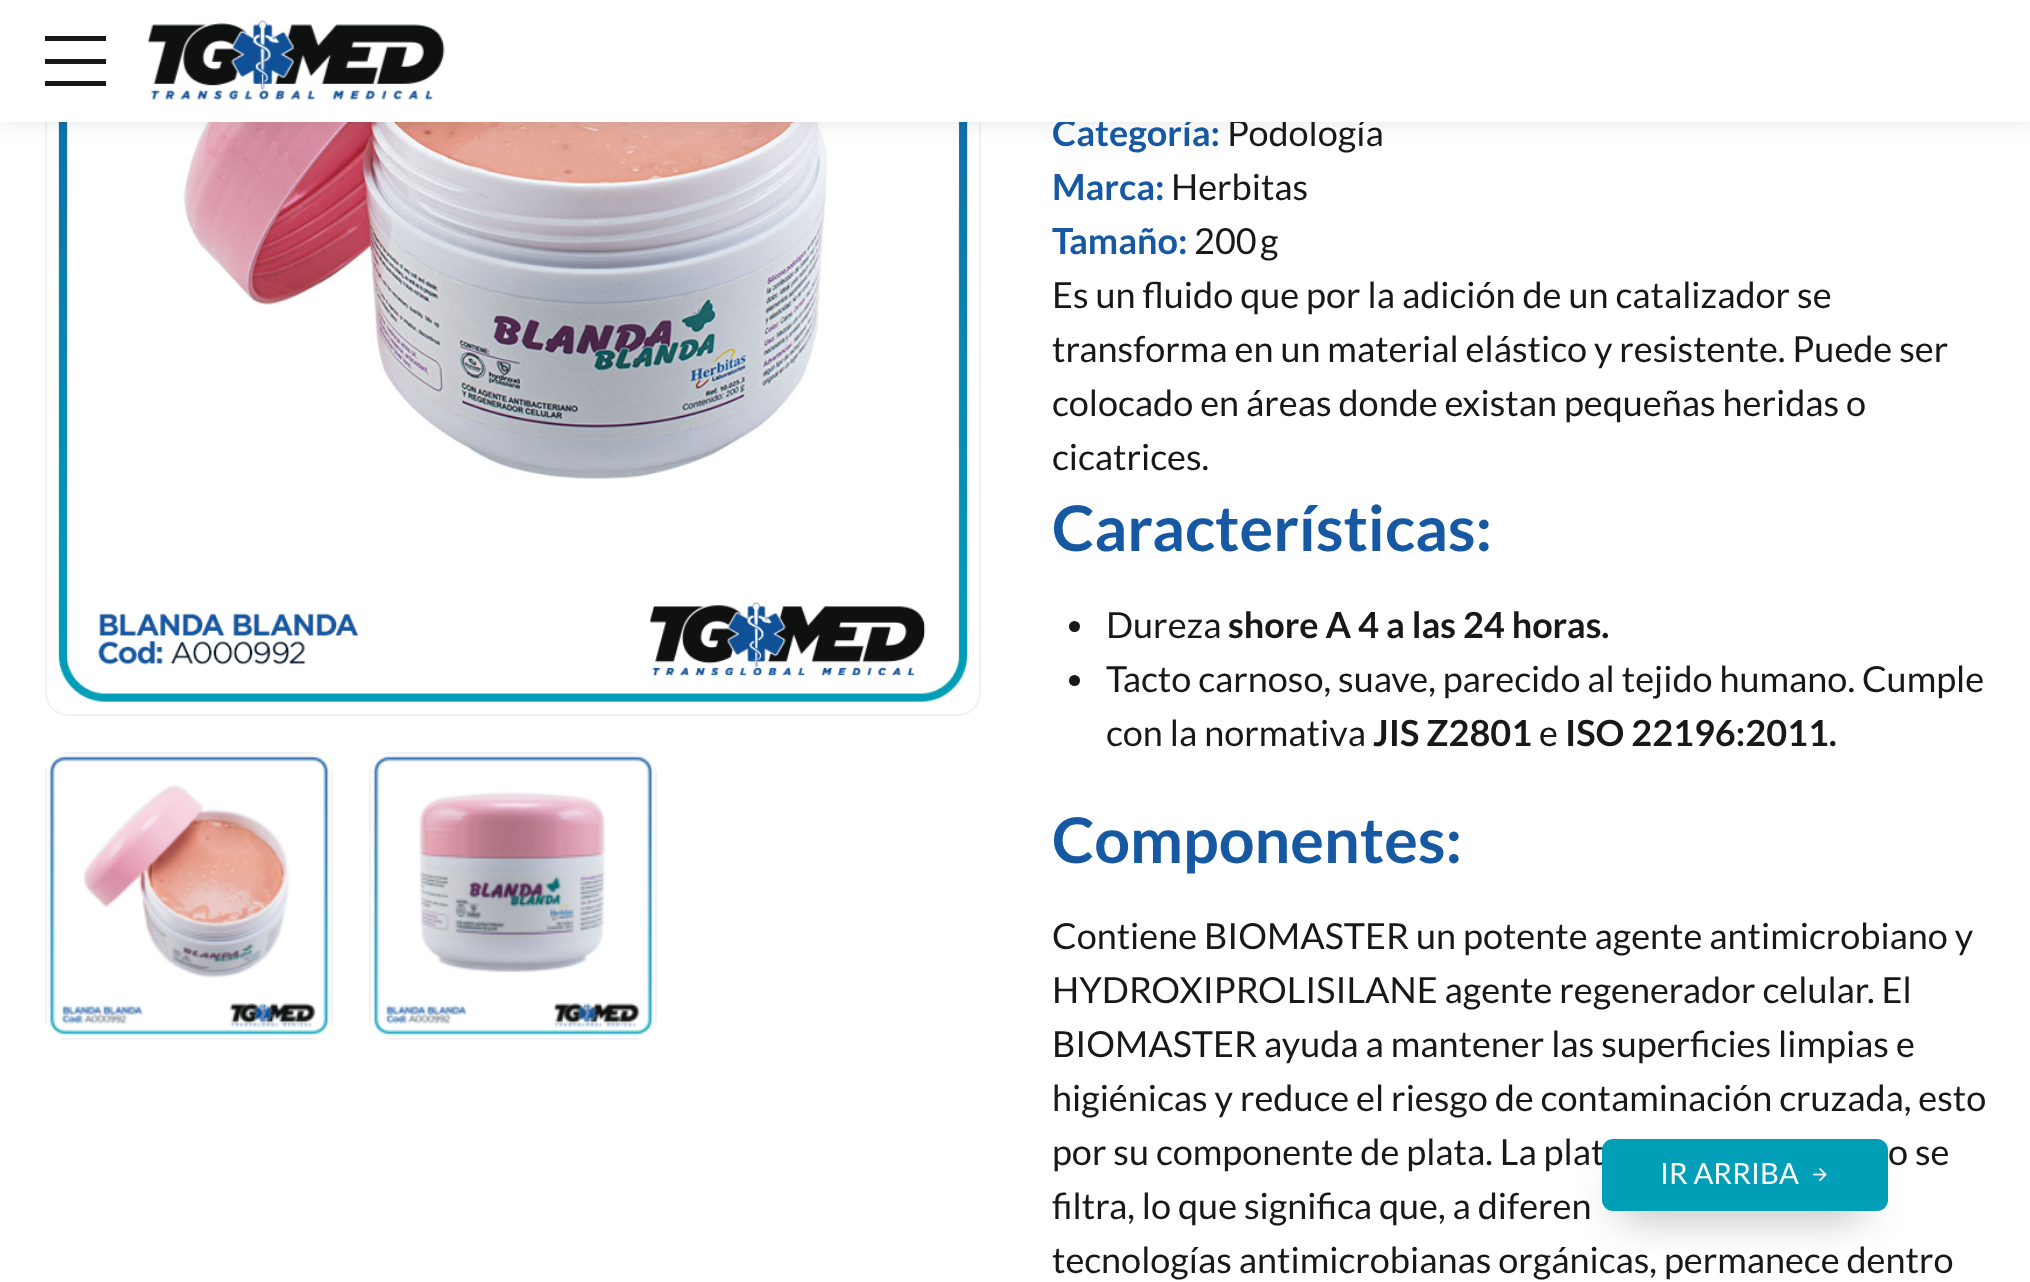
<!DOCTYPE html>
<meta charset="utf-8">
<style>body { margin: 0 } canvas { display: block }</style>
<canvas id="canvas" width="2030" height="1282"></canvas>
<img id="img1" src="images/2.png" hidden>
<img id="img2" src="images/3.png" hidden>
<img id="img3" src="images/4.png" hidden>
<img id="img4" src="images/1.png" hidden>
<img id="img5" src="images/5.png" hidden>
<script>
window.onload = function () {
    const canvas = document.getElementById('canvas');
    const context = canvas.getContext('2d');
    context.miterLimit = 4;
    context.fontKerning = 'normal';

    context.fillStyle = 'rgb(255, 255, 255)';
    context.fillRect(0, 0, 2030, 1282);
    context.beginPath();
    context.roundRect(46, -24, 934, 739, 22);
    context.strokeStyle = 'rgb(242, 242, 242)';
    context.lineWidth = 2;
    context.stroke();
    context.drawImage(document.getElementById('img1'), 58, 122, 910, 580);
    context.fillStyle = 'rgba(0, 0, 0, 0.1)';
    context.filter = 'blur(11px)';
    context.beginPath();
    context.rect(0, 0, 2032, 122);
    context.fill();
    context.filter = 'none';
    context.fillStyle = 'rgb(242, 242, 242)';
    context.beginPath();
    context.moveTo(45, 775);
    context.lineTo(45, 1017);
    context.bezierCurveTo(45, 1020, 46, 1024, 47, 1026);
    context.lineTo(47, 766);
    context.bezierCurveTo(46, 768, 45, 772, 45, 775);
    context.closePath();
    context.moveTo(68, 752);
    context.bezierCurveTo(65, 752, 61, 753, 59, 754);
    context.lineTo(319, 754);
    context.bezierCurveTo(317, 753, 313, 752, 310, 752);
    context.closePath();
    context.moveTo(333, 775);
    context.bezierCurveTo(333, 772, 332, 768, 331, 766);
    context.lineTo(331, 1026);
    context.bezierCurveTo(332, 1024, 333, 1020, 333, 1017);
    context.closePath();
    context.moveTo(310, 1040);
    context.bezierCurveTo(313, 1040, 317, 1039, 319, 1038);
    context.lineTo(59, 1038);
    context.bezierCurveTo(61, 1039, 65, 1040, 68, 1040);
    context.closePath();
    context.fill('evenodd');
    context.drawImage(document.getElementById('img2'), 48, 755, 282, 281);
    context.beginPath();
    context.moveTo(369, 775);
    context.lineTo(369, 1017);
    context.bezierCurveTo(369, 1020, 370, 1024, 371, 1026);
    context.lineTo(371, 766);
    context.bezierCurveTo(370, 768, 369, 772, 369, 775);
    context.closePath();
    context.moveTo(392, 752);
    context.bezierCurveTo(389, 752, 385, 753, 383, 754);
    context.lineTo(643, 754);
    context.bezierCurveTo(641, 753, 637, 752, 634, 752);
    context.closePath();
    context.moveTo(657, 775);
    context.bezierCurveTo(657, 772, 656, 768, 655, 766);
    context.lineTo(655, 1026);
    context.bezierCurveTo(656, 1024, 657, 1020, 657, 1017);
    context.closePath();
    context.moveTo(634, 1040);
    context.bezierCurveTo(637, 1040, 641, 1039, 643, 1038);
    context.lineTo(383, 1038);
    context.bezierCurveTo(385, 1039, 389, 1040, 392, 1040);
    context.closePath();
    context.fill('evenodd');
    context.drawImage(document.getElementById('img3'), 372, 755, 282, 281);
    context.fillStyle = 'rgb(24, 24, 24)';
    context.beginPath();
    context.arc(1074.5, 626.5, 5.5, 0, 2 * Math.PI);
    context.fill();
    context.beginPath();
    context.arc(1074.5, 680.5, 5.5, 0, 2 * Math.PI);
    context.fill();
    context.save();
    context.beginPath();
    context.moveTo(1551, 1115);
    context.lineTo(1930, 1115);
    context.lineTo(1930, 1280);
    context.lineTo(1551, 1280);
    context.closePath();
    context.moveTo(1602, 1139);
    context.lineTo(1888, 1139);
    context.lineTo(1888, 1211);
    context.lineTo(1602, 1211);
    context.closePath();
    context.clip('evenodd');
    context.fillStyle = 'rgba(0, 0, 0, 0.4)';
    context.filter = 'blur(22.5px)';
    context.beginPath();
    context.rect(1620, 1184, 241, 27);
    context.fill();
    context.filter = 'none';
    context.restore();
    context.font = 'bold 36px Lato';
    context.fillStyle = 'rgb(22, 89, 162)';
    context.fillText('Categoría:', 1052, 146);
    context.font = '36px Lato';
    context.fillStyle = 'rgb(24, 24, 24)';
    context.fillText('Podología', 1227, 146);
    context.fillStyle = 'rgb(255, 255, 255)';
    context.fillRect(0, 0, 2030, 122);
    context.drawImage(document.getElementById('img4'), 147, 20, 298, 80);
    context.fillStyle = 'rgb(24, 24, 24)';
    context.fillRect(45, 81, 61, 5);
    context.fillRect(45, 59, 61, 5);
    context.fillRect(45, 36, 61, 5);
    context.font = 'bold 36px Lato';
    context.fillStyle = 'rgb(22, 89, 162)';
    context.fillText('Marca:', 1052, 200);
    context.font = '36px Lato';
    context.fillStyle = 'rgb(24, 24, 24)';
    context.fillText('Herbitas', 1171, 200);
    context.font = 'bold 36px Lato';
    context.fillStyle = 'rgb(22, 89, 162)';
    context.fillText('Tamaño:', 1052, 254);
    context.font = '36px Lato';
    context.fillStyle = 'rgb(24, 24, 24)';
    context.fillText('200 g', 1194, 254);
    context.fillText('Es un fluido que por la adición de un catalizador se', 1052, 308);
    context.fillText('transforma en un material elástico y resistente. Puede ser', 1052, 362);
    context.fillText('colocado en áreas donde existan pequeñas heridas o', 1052, 416);
    context.fillText('cicatrices.', 1052, 470);
    context.font = 'bold 63px Lato';
    context.fillStyle = 'rgb(22, 89, 162)';
    context.fillText('Características:', 1052, 551);
    context.font = '36px Lato';
    context.fillStyle = 'rgb(24, 24, 24)';
    context.fillText('Dureza', 1106, 638);
    context.font = 'bold 36px Lato';
    context.fillText('shore A 4 a las 24 horas.', 1228, 638);
    context.font = '36px Lato';
    context.fillText('Tacto carnoso, suave, parecido al tejido humano. Cumple', 1106, 692);
    context.fillText('con la normativa', 1106, 746);
    context.font = 'bold 36px Lato';
    context.fillText('JIS Z2801', 1373, 746);
    context.font = '36px Lato';
    context.fillText('e', 1539, 746);
    context.font = 'bold 36px Lato';
    context.fillText('ISO 22196:2011.', 1565, 746);
    context.font = 'bold 63px Lato';
    context.fillStyle = 'rgb(22, 89, 162)';
    context.fillText('Componentes:', 1052, 863);
    context.font = '36px Lato';
    context.fillStyle = 'rgb(24, 24, 24)';
    context.fillText('Contiene BIOMASTER un potente agente antimicrobiano y', 1052, 949);
    context.fillText('HYDROXIPROLISILANE agente regenerador celular. El', 1052, 1003);
    context.fillText('BIOMASTER ayuda a mantener las superficies limpias e', 1052, 1057);
    context.fillText('higiénicas y reduce el riesgo de contaminación cruzada, esto', 1052, 1111);
    context.fillText('por su componente de plata. La plat', 1052, 1165);
    context.fillText('o se', 1888, 1165);
    context.fillText('filtra, lo que significa que, a diferen', 1052, 1219);
    context.fillText('tecnologías antimicrobianas orgánicas, permanece dentro', 1052, 1273);
    context.fillStyle = 'rgb(0, 159, 183)';
    context.beginPath();
    context.roundRect(1602, 1139, 286, 72, 11);
    context.fill();
    context.font = '29.25px Lato';
    context.fillStyle = 'rgb(255, 255, 255)';
    context.fillText('IR ARRIBA', 1660, 1184);
    context.drawImage(document.getElementById('img5'), 1813, 1168, 14, 14);
};
</script>
